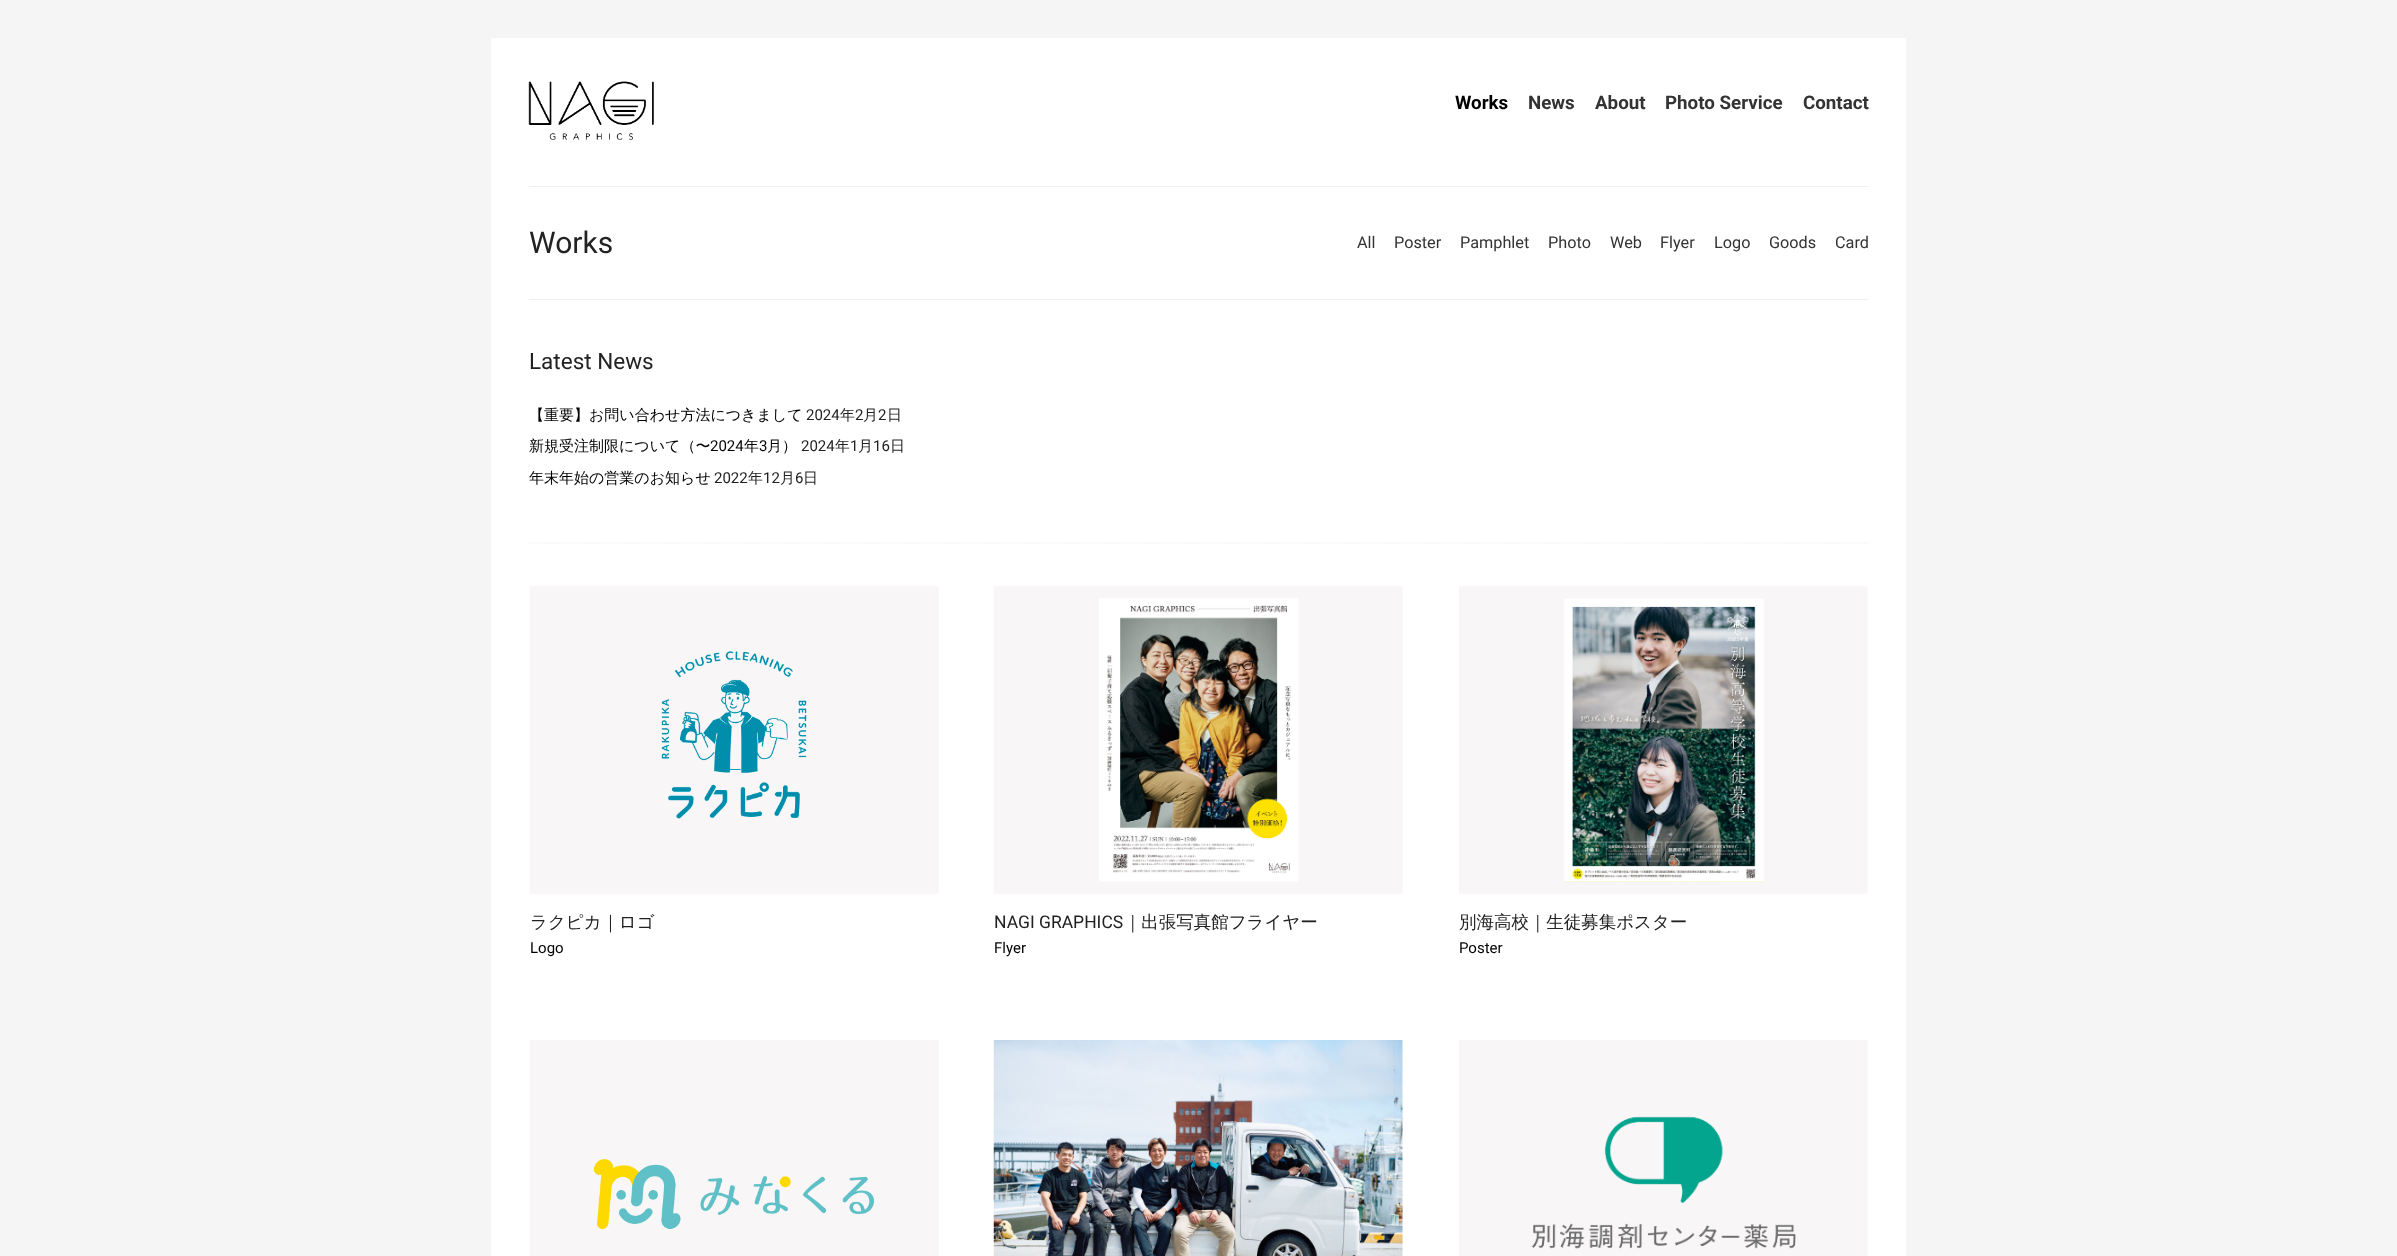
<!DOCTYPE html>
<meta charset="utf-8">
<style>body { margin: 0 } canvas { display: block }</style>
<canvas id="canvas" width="2397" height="1256"></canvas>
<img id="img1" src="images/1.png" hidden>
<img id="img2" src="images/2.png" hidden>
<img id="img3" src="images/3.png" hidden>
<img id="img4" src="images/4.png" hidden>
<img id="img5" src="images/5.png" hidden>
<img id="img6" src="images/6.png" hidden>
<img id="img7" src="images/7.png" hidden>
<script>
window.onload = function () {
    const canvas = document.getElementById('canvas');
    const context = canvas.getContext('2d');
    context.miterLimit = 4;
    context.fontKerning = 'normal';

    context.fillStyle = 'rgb(245, 245, 245)';
    context.fillRect(0, 0, 2397, 1256);
    context.fillStyle = 'rgb(255, 255, 255)';
    context.fillRect(491, 38, 1415, 1218);
    context.fillStyle = 'rgb(240, 240, 240)';
    context.fillRect(529, 186, 1340, 1);
    context.drawImage(document.getElementById('img1'), 528, 81, 126, 59);
    context.fillRect(529, 299, 1340, 1);
    context.beginPath();
    context.moveTo(529, 543);
    context.lineTo(1869, 543);
    context.strokeStyle = 'rgb(235, 235, 235)';
    context.lineWidth = 1.2;
    context.setLineDash([1.25, 1.25]);
    context.stroke();
    context.drawImage(document.getElementById('img2'), 530, 586, 409, 308);
    context.drawImage(document.getElementById('img3'), 994, 586, 409, 308);
    context.drawImage(document.getElementById('img4'), 1459, 586, 409, 308);
    context.drawImage(document.getElementById('img5'), 530, 1040, 409, 216);
    context.drawImage(document.getElementById('img6'), 993, 1040, 410, 216);
    context.drawImage(document.getElementById('img7'), 1459, 1040, 409, 216);
    context.font = 'bold 18.75px Roboto';
    context.fillStyle = 'rgb(0, 0, 0)';
    context.fillText('Works', 1455, 109);
    context.fillStyle = 'rgb(51, 51, 51)';
    context.fillText('News', 1528, 109);
    context.fillText('About', 1595, 109);
    context.fillText('Photo Service', 1665, 109);
    context.fillText('Contact', 1803, 109);
    context.font = '30px Roboto';
    context.fillStyle = 'rgb(34, 34, 34)';
    context.fillText('Works', 529, 253);
    context.font = '16.25px Roboto';
    context.fillStyle = 'rgb(51, 51, 51)';
    context.fillText('All', 1357, 248);
    context.fillText('Poster', 1394, 248);
    context.fillText('Pamphlet', 1460, 248);
    context.fillText('Photo', 1548, 248);
    context.fillText('Web', 1610, 248);
    context.fillText('Flyer', 1660, 248);
    context.fillText('Logo', 1714, 248);
    context.fillText('Goods', 1769, 248);
    context.fillText('Card', 1835, 248);
    context.font = '22.5px Roboto';
    context.fillStyle = 'rgb(34, 34, 34)';
    context.fillText('Latest News', 529, 369);
    context.font = '500 15px WenQuanYi Zen Hei';
    context.fillStyle = 'rgb(0, 0, 0)';
    context.fillText('【重要】お問い合わせ方法につきまして', 529, 420);
    context.font = '15px Roboto';
    context.fillStyle = 'rgb(34, 34, 34)';
    context.fillText('2024', 806, 420);
    context.font = '500 15px WenQuanYi Zen Hei';
    context.fillText('年', 840, 420);
    context.font = '15px Roboto';
    context.fillText('2', 855, 420);
    context.font = '500 15px WenQuanYi Zen Hei';
    context.fillText('月', 863, 420);
    context.font = '15px Roboto';
    context.fillText('2', 878, 420);
    context.font = '500 15px WenQuanYi Zen Hei';
    context.fillText('日', 887, 420);
    context.fillStyle = 'rgb(0, 0, 0)';
    context.fillText('新規受注制限について（〜', 529, 451);
    context.font = '15px Roboto';
    context.fillText('2024', 710, 451);
    context.font = '500 15px WenQuanYi Zen Hei';
    context.fillText('年', 744, 451);
    context.font = '15px Roboto';
    context.fillText('3', 759, 451);
    context.font = '500 15px WenQuanYi Zen Hei';
    context.fillText('月）', 767, 451);
    context.font = '15px Roboto';
    context.fillStyle = 'rgb(34, 34, 34)';
    context.fillText('2024', 801, 451);
    context.font = '500 15px WenQuanYi Zen Hei';
    context.fillText('年', 835, 451);
    context.font = '15px Roboto';
    context.fillText('1', 850, 451);
    context.font = '500 15px WenQuanYi Zen Hei';
    context.fillText('月', 858, 451);
    context.font = '15px Roboto';
    context.fillText('16', 873, 451);
    context.font = '500 15px WenQuanYi Zen Hei';
    context.fillText('日', 890, 451);
    context.fillStyle = 'rgb(0, 0, 0)';
    context.fillText('年末年始の営業のお知らせ', 529, 483);
    context.font = '15px Roboto';
    context.fillStyle = 'rgb(34, 34, 34)';
    context.fillText('2022', 714, 483);
    context.font = '500 15px WenQuanYi Zen Hei';
    context.fillText('年', 748, 483);
    context.font = '15px Roboto';
    context.fillText('12', 763, 483);
    context.font = '500 15px WenQuanYi Zen Hei';
    context.fillText('月', 780, 483);
    context.font = '15px Roboto';
    context.fillText('6', 795, 483);
    context.font = '500 15px WenQuanYi Zen Hei';
    context.fillText('日', 803, 483);
    context.font = '500 17.5px WenQuanYi Zen Hei';
    context.fillText('ラクピカ｜ロゴ', 530, 928);
    context.font = '15px Roboto';
    context.fillStyle = 'rgb(0, 0, 0)';
    context.fillText('Logo', 530, 953);
    context.font = '17.5px Roboto';
    context.fillStyle = 'rgb(34, 34, 34)';
    context.fillText('NAGI GRAPHICS', 994, 928);
    context.font = '500 17.5px WenQuanYi Zen Hei';
    context.fillText('｜出張写真館フライヤー', 1124, 928);
    context.font = '15px Roboto';
    context.fillStyle = 'rgb(0, 0, 0)';
    context.fillText('Flyer', 994, 953);
    context.font = '500 17.5px WenQuanYi Zen Hei';
    context.fillStyle = 'rgb(34, 34, 34)';
    context.fillText('別海高校｜生徒募集ポスター', 1459, 928);
    context.font = '15px Roboto';
    context.fillStyle = 'rgb(0, 0, 0)';
    context.fillText('Poster', 1459, 953);
};
</script>
